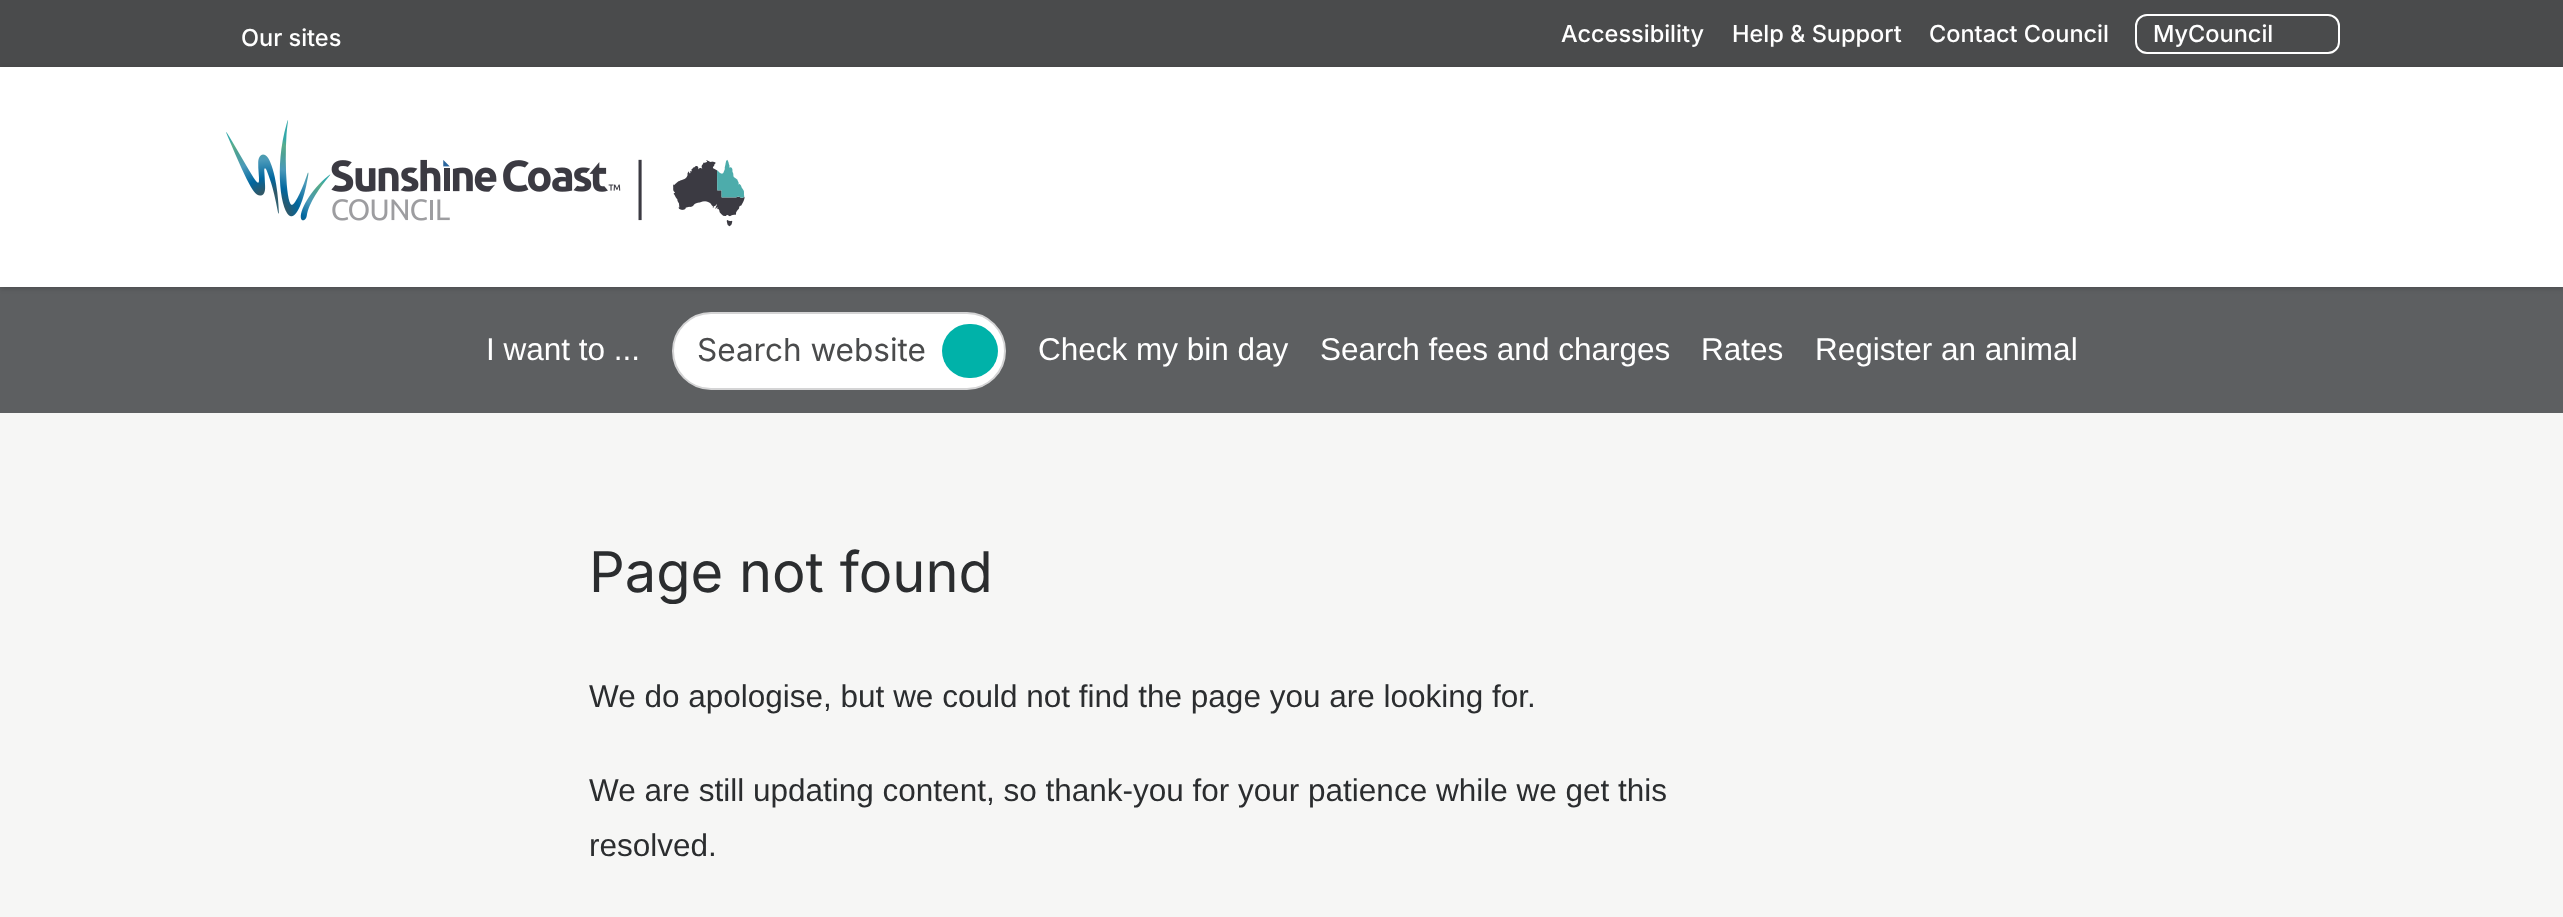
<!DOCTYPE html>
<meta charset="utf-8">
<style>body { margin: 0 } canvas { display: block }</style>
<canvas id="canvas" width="2563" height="917"></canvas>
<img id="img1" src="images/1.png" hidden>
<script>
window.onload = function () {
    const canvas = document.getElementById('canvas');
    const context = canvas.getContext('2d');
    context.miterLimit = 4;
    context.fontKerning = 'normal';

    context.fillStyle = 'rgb(246, 246, 245)';
    context.fillRect(0, 0, 2563, 917);
    context.fillStyle = 'rgb(74, 75, 76)';
    context.fillRect(0, 0, 2563, 67);
    context.beginPath();
    context.roundRect(2136, 15, 203, 38, 11);
    context.strokeStyle = 'rgb(255, 255, 255)';
    context.lineWidth = 2;
    context.stroke();
    context.fillStyle = 'rgb(93, 95, 97)';
    context.fillRect(0, 287, 2563, 126);
    context.fillStyle = 'rgba(0, 0, 0, 0.1)';
    context.filter = 'blur(2px)';
    context.beginPath();
    context.rect(2, 70, 2560, 217);
    context.fill();
    context.filter = 'none';
    context.filter = 'blur(2.5px)';
    context.beginPath();
    context.rect(0, 68, 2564, 221);
    context.fill();
    context.filter = 'none';
    context.fillStyle = 'rgb(255, 255, 255)';
    context.fillRect(0, 67, 2563, 220);
    context.drawImage(document.getElementById('img1'), 226, 120, 519, 107);
    context.beginPath();
    context.roundRect(673, 313, 332, 76, 38);
    context.fill();
    context.strokeStyle = 'rgb(212, 212, 213)';
    context.stroke();
    context.fillStyle = 'rgb(0, 178, 169)';
    context.beginPath();
    context.roundRect(942, 324, 56, 54, 27);
    context.fill();
    context.font = '500 23.5px Inter';
    context.fillStyle = 'rgb(255, 255, 255)';
    context.fillText('Our sites', 241, 46);
    context.fillText('Accessibility', 1561, 42);
    context.fillText('Help & Support', 1732, 42);
    context.fillText('Contact Council', 1929, 42);
    context.fillText('MyCouncil', 2153, 42);
    context.font = '31.5px Liberation Sans';
    context.fillText('I want to ...', 486, 360);
    context.font = '31.5px Inter';
    context.fillStyle = 'rgb(74, 75, 76)';
    context.fillText('Search website', 697, 361);
    context.font = '31.5px Liberation Sans';
    context.fillStyle = 'rgb(255, 255, 255)';
    context.fillText('Check my bin day', 1038, 360);
    context.fillText('Search fees and charges', 1320, 360);
    context.fillText('Rates', 1701, 360);
    context.fillText('Register an animal', 1815, 360);
    context.font = '56px Inter';
    context.fillStyle = 'rgb(43, 45, 47)';
    context.fillText('Page not found', 589, 592);
    context.font = '31.5px Liberation Sans';
    context.fillText('We do apologise, but we could not find the page you are looking for.', 589, 707);
    context.fillText('We are still updating content, so thank-you for your patience while we get this', 589, 801);
    context.fillText('resolved.', 589, 856);
};
</script>
